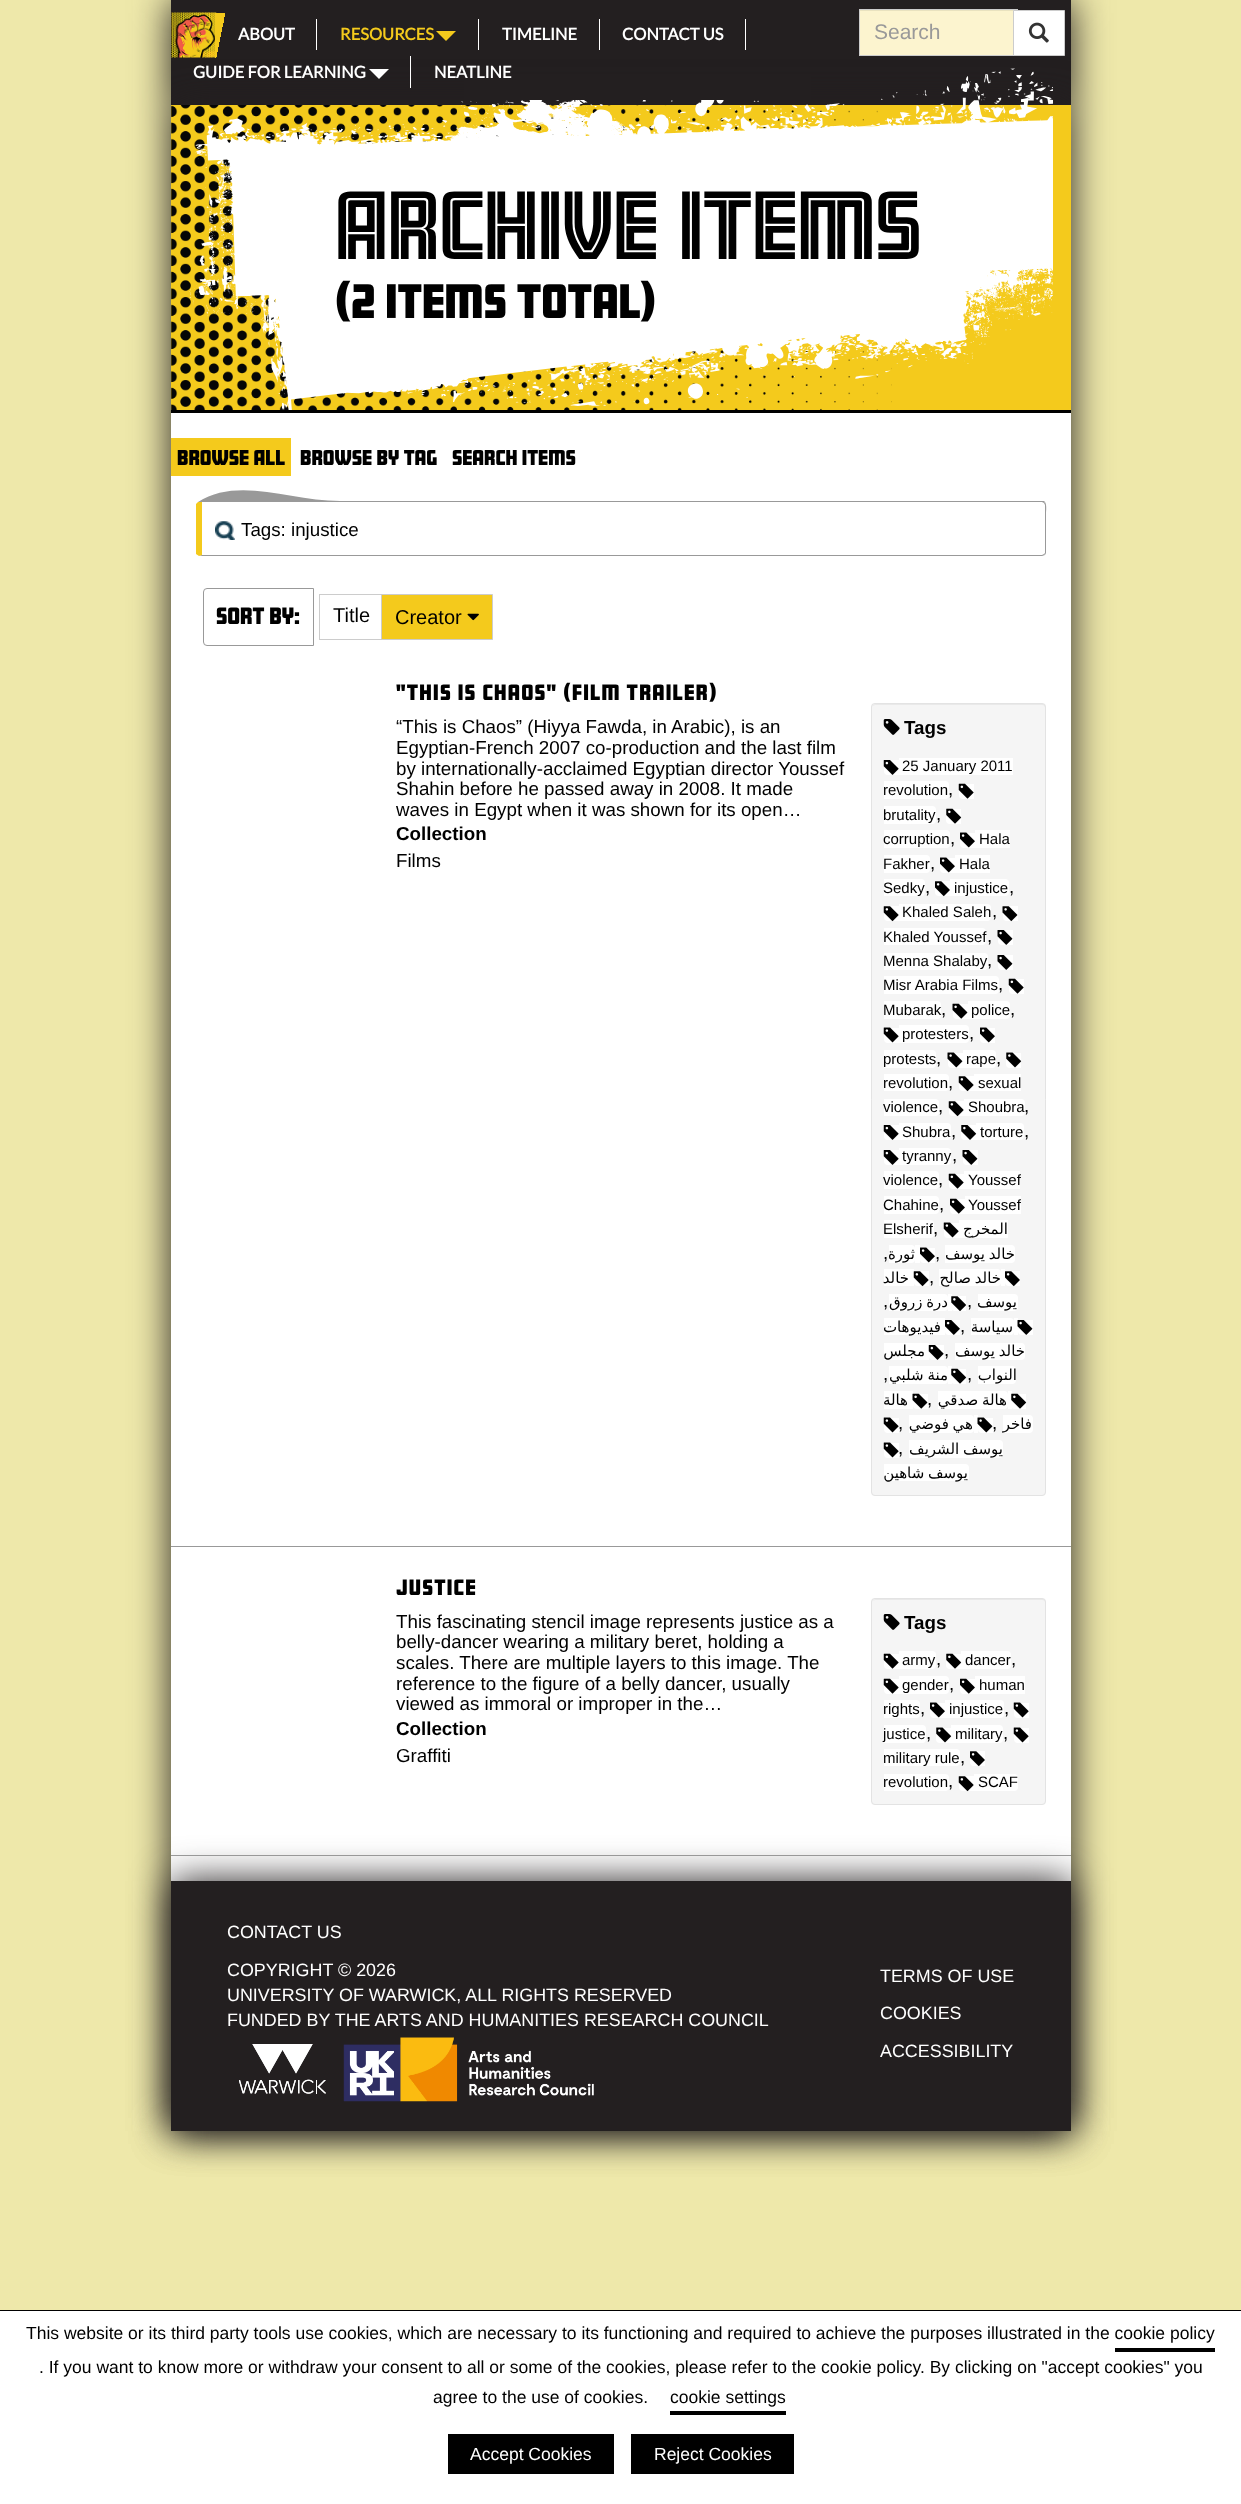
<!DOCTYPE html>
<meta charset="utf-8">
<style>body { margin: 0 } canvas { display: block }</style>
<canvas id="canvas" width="1241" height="2504"></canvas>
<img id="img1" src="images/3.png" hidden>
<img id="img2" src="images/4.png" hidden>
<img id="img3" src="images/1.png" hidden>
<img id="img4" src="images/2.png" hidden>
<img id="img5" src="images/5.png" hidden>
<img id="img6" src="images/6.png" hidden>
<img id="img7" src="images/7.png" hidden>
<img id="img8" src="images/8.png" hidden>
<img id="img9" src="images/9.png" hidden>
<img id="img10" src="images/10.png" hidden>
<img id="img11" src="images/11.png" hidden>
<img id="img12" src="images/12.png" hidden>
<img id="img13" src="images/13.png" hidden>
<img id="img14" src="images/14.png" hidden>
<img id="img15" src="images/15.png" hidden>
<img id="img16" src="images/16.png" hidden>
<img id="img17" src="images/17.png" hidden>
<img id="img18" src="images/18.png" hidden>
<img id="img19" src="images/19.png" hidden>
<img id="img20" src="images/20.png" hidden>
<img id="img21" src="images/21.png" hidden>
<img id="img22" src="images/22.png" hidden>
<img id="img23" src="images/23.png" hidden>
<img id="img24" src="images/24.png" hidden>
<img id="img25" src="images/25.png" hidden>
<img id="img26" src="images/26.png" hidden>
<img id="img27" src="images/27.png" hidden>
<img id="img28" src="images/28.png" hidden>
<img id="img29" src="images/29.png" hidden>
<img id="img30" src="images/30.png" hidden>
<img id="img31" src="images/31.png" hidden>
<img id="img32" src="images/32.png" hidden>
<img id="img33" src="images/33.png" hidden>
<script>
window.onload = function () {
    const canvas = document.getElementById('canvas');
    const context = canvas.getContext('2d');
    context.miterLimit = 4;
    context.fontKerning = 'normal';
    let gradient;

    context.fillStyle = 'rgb(238, 232, 170)';
    context.fillRect(0, 0, 1241, 2504);
    context.fillStyle = 'rgb(35, 31, 32)';
    context.filter = 'blur(19px)';
    context.beginPath();
    context.rect(171, 0, 900, 105);
    context.fill();
    context.filter = 'none';
    context.fillRect(171, 0, 900, 105);
    context.filter = 'blur(19px)';
    context.beginPath();
    context.rect(171, 105, 900, 2026);
    context.fill();
    context.filter = 'none';
    context.fillStyle = 'rgb(244, 202, 28)';
    context.fillRect(171, 105, 900, 305);
    context.drawImage(document.getElementById('img1'), 171, 105, 721, 305);
    context.drawImage(document.getElementById('img2'), 189, 68, 864, 342);
    context.fillStyle = 'rgb(35, 31, 32)';
    context.fillRect(464, 74, 347, 26);
    context.drawImage(document.getElementById('img3'), 171, 12, 46, 46);
    gradient = context.createLinearGradient(211, 33, 231, 37);
    gradient.addColorStop(0.5, 'rgb(244, 202, 28)');
    gradient.addColorStop(0.5, 'rgba(244, 202, 28, 0)');
    context.fillStyle = gradient;
    context.fillRect(215, 13, 10, 45);
    context.fillStyle = 'rgb(255, 255, 255)';
    context.fillRect(316, 19, 1, 31);
    context.fillRect(478, 19, 1, 31);
    context.fillStyle = 'rgb(244, 202, 28)';
    context.beginPath();
    context.moveTo(436, 31);
    context.lineTo(456, 31);
    context.lineTo(446, 41);
    context.closePath();
    context.fill();
    context.fillStyle = 'rgb(255, 255, 255)';
    context.fillRect(599, 19, 1, 31);
    context.fillRect(745, 19, 1, 31);
    context.fillRect(410, 56, 1, 32);
    context.beginPath();
    context.moveTo(369, 69);
    context.lineTo(389, 69);
    context.lineTo(379, 79);
    context.closePath();
    context.fill();
    context.fillStyle = 'rgb(252, 244, 207)';
    context.fillRect(860, 11, 153, 44);
    context.fillStyle = 'rgb(233, 226, 191)';
    context.fillRect(860, 10, 156, 1);
    context.strokeStyle = 'rgb(204, 204, 204)';
    context.strokeRect(859.5, 9.5, 158, 46);
    context.fillStyle = 'rgb(255, 255, 255)';
    context.beginPath();
    context.rect(1013.5, 10.5, 51, 45);
    context.fill();
    context.stroke();
    context.drawImage(document.getElementById('img4'), 1028, 22, 21, 21);
    context.fillRect(171, 413, 900, 1468);
    context.fillStyle = 'rgb(0, 0, 0)';
    context.fillRect(171, 410, 900, 3);
    context.fillStyle = 'rgb(244, 202, 28)';
    context.fillRect(171, 438, 120, 38);
    context.fillStyle = 'rgb(153, 153, 153)';
    context.beginPath();
    context.moveTo(202, 502);
    context.lineTo(198, 502);
    context.bezierCurveTo(238, 476, 292, 501, 340, 501);
    context.lineTo(1044, 501);
    context.lineTo(1045, 502);
    context.lineTo(1044, 503);
    context.lineTo(1042, 502);
    context.closePath();
    context.fill();
    context.beginPath();
    context.moveTo(1045, 502);
    context.bezierCurveTo(1047, 505, 1046, 512, 1046, 513);
    context.lineTo(1046, 553);
    context.lineTo(1045, 555);
    context.lineTo(1044, 554);
    context.lineTo(1045, 553);
    context.lineTo(1045, 505);
    context.lineTo(1044, 503);
    context.closePath();
    context.fill();
    context.beginPath();
    context.moveTo(1045, 555);
    context.lineTo(1042, 556);
    context.lineTo(199, 556);
    context.lineTo(202, 555);
    context.lineTo(1042, 555);
    context.lineTo(1044, 554);
    context.closePath();
    context.fill();
    context.fillStyle = 'rgb(244, 202, 28)';
    context.beginPath();
    context.moveTo(196, 504);
    context.lineTo(198, 502);
    context.lineTo(202, 502);
    context.lineTo(202, 555);
    context.lineTo(199, 556);
    context.bezierCurveTo(198, 555, 197, 555, 196, 554);
    context.closePath();
    context.fill();
    context.drawImage(document.getElementById('img5'), 215, 521, 20, 19);
    context.beginPath();
    context.roundRect(203.5, 588.5, 110, 57, [3.5, 0, 0, 3.5]);
    context.strokeStyle = 'rgb(153, 153, 153)';
    context.stroke();
    context.strokeStyle = 'rgb(204, 204, 204)';
    context.strokeRect(319.5, 594.5, 64, 45);
    context.beginPath();
    context.rect(381.5, 594.5, 111, 45);
    context.fill();
    context.stroke();
    context.drawImage(document.getElementById('img6'), 467, 613, 12, 8);
    context.fillStyle = 'rgb(245, 245, 245)';
    context.beginPath();
    context.roundRect(871, 703, 175, 793, 4);
    context.fill();
    context.fillStyle = 'rgb(233, 233, 233)';
    context.beginPath();
    context.moveTo(875, 705);
    context.lineTo(1042, 705);
    context.bezierCurveTo(1044, 705, 1045, 706, 1045, 708);
    context.lineTo(1045, 706);
    context.bezierCurveTo(1045, 705, 1044, 704, 1042, 704);
    context.lineTo(876, 704);
    context.bezierCurveTo(874, 704, 873, 705, 873, 706);
    context.closePath();
    context.fill();
    context.beginPath();
    context.roundRect(871.5, 703.5, 174, 792, 3.5);
    context.strokeStyle = 'rgb(227, 227, 227)';
    context.stroke();
    context.drawImage(document.getElementById('img7'), 883, 719, 17, 16);
    context.fillStyle = 'rgb(255, 255, 255)';
    context.beginPath();
    context.roundRect(884, 760, 15, 15, [4, 0, 0, 4]);
    context.fill();
    context.fillRect(899, 758, 114, 17);
    context.beginPath();
    context.roundRect(884, 781, 65, 18, [0, 4, 4, 0]);
    context.fill();
    context.drawImage(document.getElementById('img8'), 883, 760, 16, 15);
    context.beginPath();
    context.roundRect(959, 784, 15, 15, [4, 0, 0, 4]);
    context.fill();
    context.beginPath();
    context.roundRect(884, 806, 52, 18, [0, 4, 4, 0]);
    context.fill();
    context.drawImage(document.getElementById('img9'), 958, 783, 16, 16);
    context.beginPath();
    context.roundRect(946, 809, 15, 15, [4, 0, 0, 4]);
    context.fill();
    context.beginPath();
    context.roundRect(884, 830, 66, 18, [0, 4, 4, 0]);
    context.fill();
    context.drawImage(document.getElementById('img10'), 946, 808, 16, 16);
    context.beginPath();
    context.roundRect(960, 833, 15, 15, [4, 0, 0, 4]);
    context.fill();
    context.fillRect(975, 830, 35, 18);
    context.beginPath();
    context.roundRect(884, 855, 46, 18, [0, 4, 4, 0]);
    context.fill();
    context.drawImage(document.getElementById('img11'), 960, 832, 15, 16);
    context.beginPath();
    context.roundRect(940, 858, 15, 15, [4, 0, 0, 4]);
    context.fill();
    context.fillRect(955, 855, 35, 18);
    context.beginPath();
    context.roundRect(884, 879, 41, 17, [0, 4, 4, 0]);
    context.fill();
    context.drawImage(document.getElementById('img11'), 940, 857, 15, 16);
    context.beginPath();
    context.roundRect(935, 881, 15, 15, [4, 0, 0, 4]);
    context.fill();
    context.fillRect(950, 879, 5, 17);
    context.beginPath();
    context.roundRect(955, 879, 54, 17, [0, 4, 4, 0]);
    context.fill();
    context.drawImage(document.getElementById('img12'), 935, 881, 15, 16);
    context.beginPath();
    context.roundRect(884, 906, 15, 15, [4, 0, 0, 4]);
    context.fill();
    context.fillRect(899, 904, 4, 17);
    context.beginPath();
    context.roundRect(903, 904, 88, 17, [0, 4, 4, 0]);
    context.fill();
    context.drawImage(document.getElementById('img13'), 883, 906, 16, 16);
    context.beginPath();
    context.roundRect(1003, 906, 15, 15, [4, 0, 0, 4]);
    context.fill();
    context.beginPath();
    context.roundRect(884, 928, 102, 17, [0, 4, 4, 0]);
    context.fill();
    context.drawImage(document.getElementById('img14'), 1002, 906, 16, 16);
    context.beginPath();
    context.roundRect(998, 930, 15, 15, [4, 0, 0, 4]);
    context.fill();
    context.beginPath();
    context.roundRect(884, 953, 104, 17, [0, 4, 4, 0]);
    context.fill();
    context.drawImage(document.getElementById('img15'), 997, 930, 16, 15);
    context.beginPath();
    context.roundRect(998, 955, 15, 15, [4, 0, 0, 4]);
    context.fill();
    context.beginPath();
    context.roundRect(884, 976, 115, 18, [0, 4, 4, 0]);
    context.fill();
    context.drawImage(document.getElementById('img15'), 997, 955, 16, 15);
    context.beginPath();
    context.roundRect(1009, 979, 15, 15, [4, 0, 0, 4]);
    context.fill();
    context.beginPath();
    context.roundRect(884, 1001, 57, 18, [0, 4, 4, 0]);
    context.fill();
    context.drawImage(document.getElementById('img9'), 1008, 978, 16, 16);
    context.beginPath();
    context.roundRect(953, 1004, 15, 15, [4, 0, 0, 4]);
    context.fill();
    context.fillRect(968, 1001, 3, 18);
    context.beginPath();
    context.roundRect(971, 1001, 39, 18, [0, 4, 4, 0]);
    context.fill();
    context.drawImage(document.getElementById('img16'), 952, 1003, 16, 16);
    context.beginPath();
    context.roundRect(884, 1028, 15, 15, [4, 0, 0, 4]);
    context.fill();
    context.fillRect(899, 1025, 4, 18);
    context.beginPath();
    context.roundRect(903, 1025, 66, 18, [0, 4, 4, 0]);
    context.fill();
    context.drawImage(document.getElementById('img17'), 883, 1027, 16, 16);
    context.beginPath();
    context.roundRect(980, 1028, 15, 15, [4, 0, 0, 4]);
    context.fill();
    context.beginPath();
    context.roundRect(884, 1050, 52, 18, [0, 4, 4, 0]);
    context.fill();
    context.drawImage(document.getElementById('img11'), 980, 1027, 15, 16);
    context.beginPath();
    context.roundRect(948, 1053, 15, 15, [4, 0, 0, 4]);
    context.fill();
    context.fillRect(963, 1050, 3, 18);
    context.beginPath();
    context.roundRect(966, 1050, 30, 18, [0, 4, 4, 0]);
    context.fill();
    context.drawImage(document.getElementById('img18'), 947, 1052, 16, 16);
    context.beginPath();
    context.roundRect(959, 1076, 15, 15, [4, 0, 0, 4]);
    context.fill();
    context.fillRect(974, 1074, 47, 17);
    context.beginPath();
    context.roundRect(884, 1099, 55, 17, [0, 4, 4, 0]);
    context.fill();
    context.drawImage(document.getElementById('img13'), 958, 1076, 16, 16);
    context.beginPath();
    context.roundRect(1006, 1053, 15, 15, [4, 0, 0, 4]);
    context.fill();
    context.beginPath();
    context.roundRect(884, 1074, 65, 17, [0, 4, 4, 0]);
    context.fill();
    context.drawImage(document.getElementById('img19'), 1006, 1052, 16, 16);
    context.beginPath();
    context.roundRect(949, 1101, 15, 15, [4, 0, 0, 4]);
    context.fill();
    context.fillRect(964, 1099, 4, 17);
    context.beginPath();
    context.roundRect(968, 1099, 57, 17, [0, 4, 4, 0]);
    context.fill();
    context.drawImage(document.getElementById('img13'), 948, 1101, 16, 16);
    context.beginPath();
    context.roundRect(884, 1125, 15, 15, [4, 0, 0, 4]);
    context.fill();
    context.fillRect(899, 1123, 4, 17);
    context.beginPath();
    context.roundRect(903, 1123, 48, 17, [0, 4, 4, 0]);
    context.fill();
    context.drawImage(document.getElementById('img8'), 883, 1125, 16, 15);
    context.beginPath();
    context.roundRect(961, 1125, 15, 15, [4, 0, 0, 4]);
    context.fill();
    context.fillRect(976, 1123, 4, 17);
    context.beginPath();
    context.roundRect(980, 1123, 44, 17, [0, 4, 4, 0]);
    context.fill();
    context.drawImage(document.getElementById('img20'), 961, 1125, 16, 15);
    context.beginPath();
    context.roundRect(884, 1150, 15, 15, [4, 0, 0, 4]);
    context.fill();
    context.fillRect(899, 1148, 4, 17);
    context.beginPath();
    context.roundRect(903, 1148, 48, 17, [0, 4, 4, 0]);
    context.fill();
    context.drawImage(document.getElementById('img8'), 883, 1150, 16, 15);
    context.beginPath();
    context.roundRect(963, 1150, 15, 15, [4, 0, 0, 4]);
    context.fill();
    context.beginPath();
    context.roundRect(884, 1171, 55, 18, [0, 4, 4, 0]);
    context.fill();
    context.drawImage(document.getElementById('img15'), 962, 1150, 16, 15);
    context.beginPath();
    context.roundRect(949, 1174, 15, 15, [4, 0, 0, 4]);
    context.fill();
    context.fillRect(964, 1171, 56, 18);
    context.beginPath();
    context.roundRect(884, 1196, 55, 18, [0, 4, 4, 0]);
    context.fill();
    context.drawImage(document.getElementById('img9'), 948, 1173, 16, 16);
    context.beginPath();
    context.roundRect(950, 1199, 15, 15, [4, 0, 0, 4]);
    context.fill();
    context.fillRect(965, 1196, 56, 18);
    context.beginPath();
    context.roundRect(884, 1220, 50, 18, [0, 4, 4, 0]);
    context.fill();
    context.drawImage(document.getElementById('img21'), 950, 1198, 15, 16);
    context.beginPath();
    context.roundRect(944, 1223, 15, 15, [4, 0, 0, 4]);
    context.fill();
    context.fillRect(959, 1220, 49, 18);
    context.beginPath();
    context.roundRect(945, 1245, 70, 18, [0, 4, 4, 0]);
    context.fill();
    context.drawImage(document.getElementById('img17'), 943, 1222, 16, 16);
    context.beginPath();
    context.roundRect(920, 1248, 15, 15, [4, 0, 0, 4]);
    context.fill();
    context.fillRect(915, 1245, 5, 18);
    context.beginPath();
    context.roundRect(889, 1245, 26, 18, [0, 4, 4, 0]);
    context.fill();
    context.drawImage(document.getElementById('img11'), 920, 1247, 15, 16);
    context.beginPath();
    context.roundRect(914, 1271, 15, 15, [4, 0, 0, 4]);
    context.fill();
    context.fillRect(884, 1269, 30, 17);
    context.beginPath();
    context.roundRect(978, 1294, 40, 17, [0, 4, 4, 0]);
    context.fill();
    context.drawImage(document.getElementById('img22'), 913, 1271, 16, 16);
    context.beginPath();
    context.roundRect(1005, 1271, 15, 15, [4, 0, 0, 4]);
    context.fill();
    context.fillRect(1001, 1269, 4, 17);
    context.beginPath();
    context.roundRect(939, 1269, 62, 17, [0, 4, 4, 0]);
    context.fill();
    context.drawImage(document.getElementById('img12'), 1005, 1271, 15, 16);
    context.beginPath();
    context.roundRect(951, 1296, 15, 15, [4, 0, 0, 4]);
    context.fill();
    context.fillRect(948, 1294, 4, 17);
    context.beginPath();
    context.roundRect(889, 1294, 59, 17, [0, 4, 4, 0]);
    context.fill();
    context.drawImage(document.getElementById('img23'), 951, 1296, 15, 15);
    context.beginPath();
    context.roundRect(945, 1320, 15, 15, [4, 0, 0, 4]);
    context.fill();
    context.fillRect(884, 1318, 61, 17);
    context.beginPath();
    context.roundRect(955, 1343, 70, 17, [0, 4, 4, 0]);
    context.fill();
    context.drawImage(document.getElementById('img24'), 945, 1320, 15, 15);
    context.beginPath();
    context.roundRect(1018, 1320, 15, 15, [4, 0, 0, 4]);
    context.fill();
    context.fillRect(1014, 1318, 4, 17);
    context.beginPath();
    context.roundRect(971, 1318, 43, 17, [0, 4, 4, 0]);
    context.fill();
    context.drawImage(document.getElementById('img25'), 1017, 1320, 16, 15);
    context.beginPath();
    context.roundRect(929, 1345, 15, 15, [4, 0, 0, 4]);
    context.fill();
    context.fillRect(884, 1343, 45, 17);
    context.beginPath();
    context.roundRect(978, 1366, 38, 18, [0, 4, 4, 0]);
    context.fill();
    context.drawImage(document.getElementById('img26'), 928, 1345, 16, 15);
    context.beginPath();
    context.roundRect(951, 1369, 15, 15, [4, 0, 0, 4]);
    context.fill();
    context.fillRect(948, 1366, 4, 18);
    context.beginPath();
    context.roundRect(889, 1366, 59, 18, [0, 4, 4, 0]);
    context.fill();
    context.drawImage(document.getElementById('img27'), 951, 1368, 16, 16);
    context.beginPath();
    context.roundRect(913, 1394, 15, 15, [4, 0, 0, 4]);
    context.fill();
    context.fillRect(884, 1391, 29, 18);
    context.beginPath();
    context.roundRect(1003, 1415, 30, 18, [0, 4, 4, 0]);
    context.fill();
    context.drawImage(document.getElementById('img28'), 912, 1393, 16, 16);
    context.beginPath();
    context.roundRect(1011, 1394, 15, 15, [4, 0, 0, 4]);
    context.fill();
    context.fillRect(1008, 1391, 4, 18);
    context.beginPath();
    context.roundRect(938, 1391, 70, 18, [0, 4, 4, 0]);
    context.fill();
    context.drawImage(document.getElementById('img27'), 1011, 1393, 16, 16);
    context.beginPath();
    context.roundRect(978, 1418, 15, 15, [4, 0, 0, 4]);
    context.fill();
    context.fillRect(974, 1415, 4, 18);
    context.beginPath();
    context.roundRect(909, 1415, 65, 18, [0, 4, 4, 0]);
    context.fill();
    context.drawImage(document.getElementById('img29'), 977, 1417, 16, 16);
    context.beginPath();
    context.roundRect(884, 1418, 15, 15, [4, 0, 0, 4]);
    context.fill();
    context.beginPath();
    context.roundRect(909, 1440, 94, 18, [0, 4, 4, 0]);
    context.fill();
    context.drawImage(document.getElementById('img17'), 883, 1417, 16, 16);
    context.beginPath();
    context.roundRect(884, 1443, 15, 15, [4, 0, 0, 4]);
    context.fill();
    context.beginPath();
    context.roundRect(884, 1464, 85, 17, [0, 4, 4, 0]);
    context.fill();
    context.drawImage(document.getElementById('img17'), 883, 1442, 16, 16);
    context.fillStyle = 'rgb(153, 153, 153)';
    context.fillRect(171, 1546, 900, 1);
    context.fillStyle = 'rgb(245, 245, 245)';
    context.beginPath();
    context.roundRect(871, 1598, 175, 207, 4);
    context.fill();
    context.fillStyle = 'rgb(233, 233, 233)';
    context.beginPath();
    context.moveTo(875, 1600);
    context.lineTo(1042, 1600);
    context.bezierCurveTo(1044, 1600, 1045, 1601, 1045, 1602);
    context.bezierCurveTo(1045, 1600, 1044, 1599, 1042, 1599);
    context.lineTo(876, 1599);
    context.bezierCurveTo(874, 1599, 874, 1600, 873, 1601);
    context.closePath();
    context.fill();
    context.beginPath();
    context.roundRect(871.5, 1598.5, 174, 206, 3.5);
    context.stroke();
    context.drawImage(document.getElementById('img7'), 883, 1614, 17, 16);
    context.fillStyle = 'rgb(255, 255, 255)';
    context.beginPath();
    context.roundRect(884, 1654, 15, 15, [4, 0, 0, 4]);
    context.fill();
    context.fillRect(899, 1651, 4, 18);
    context.beginPath();
    context.roundRect(903, 1651, 33, 18, [0, 4, 4, 0]);
    context.fill();
    context.drawImage(document.getElementById('img9'), 883, 1653, 16, 16);
    context.beginPath();
    context.roundRect(946, 1654, 15, 15, [4, 0, 0, 4]);
    context.fill();
    context.fillRect(961, 1651, 4, 18);
    context.beginPath();
    context.roundRect(965, 1651, 46, 18, [0, 4, 4, 0]);
    context.fill();
    context.drawImage(document.getElementById('img30'), 946, 1653, 16, 16);
    context.beginPath();
    context.roundRect(960, 1679, 15, 15, [4, 0, 0, 4]);
    context.fill();
    context.fillRect(975, 1676, 50, 18);
    context.beginPath();
    context.roundRect(884, 1700, 36, 18, [0, 4, 4, 0]);
    context.fill();
    context.drawImage(document.getElementById('img21'), 960, 1678, 15, 16);
    context.beginPath();
    context.roundRect(884, 1679, 15, 15, [4, 0, 0, 4]);
    context.fill();
    context.fillRect(899, 1676, 4, 18);
    context.beginPath();
    context.roundRect(903, 1676, 46, 18, [0, 4, 4, 0]);
    context.fill();
    context.drawImage(document.getElementById('img9'), 883, 1678, 16, 16);
    context.beginPath();
    context.roundRect(930, 1703, 15, 15, [4, 0, 0, 4]);
    context.fill();
    context.fillRect(945, 1700, 5, 18);
    context.beginPath();
    context.roundRect(950, 1700, 54, 18, [0, 4, 4, 0]);
    context.fill();
    context.drawImage(document.getElementById('img11'), 930, 1702, 15, 16);
    context.beginPath();
    context.roundRect(1014, 1703, 15, 15, [4, 0, 0, 4]);
    context.fill();
    context.beginPath();
    context.roundRect(884, 1725, 42, 18, [0, 4, 4, 0]);
    context.fill();
    context.drawImage(document.getElementById('img17'), 1013, 1702, 16, 16);
    context.beginPath();
    context.roundRect(936, 1728, 15, 15, [4, 0, 0, 4]);
    context.fill();
    context.fillRect(951, 1725, 4, 18);
    context.beginPath();
    context.roundRect(955, 1725, 48, 18, [0, 4, 4, 0]);
    context.fill();
    context.drawImage(document.getElementById('img31'), 936, 1727, 16, 16);
    context.beginPath();
    context.roundRect(1014, 1728, 15, 15, [4, 0, 0, 4]);
    context.fill();
    context.beginPath();
    context.roundRect(884, 1749, 76, 17, [0, 4, 4, 0]);
    context.fill();
    context.drawImage(document.getElementById('img17'), 1013, 1727, 16, 16);
    context.beginPath();
    context.roundRect(970, 1751, 15, 15, [4, 0, 0, 4]);
    context.fill();
    context.beginPath();
    context.roundRect(884, 1774, 65, 17, [0, 4, 4, 0]);
    context.fill();
    context.drawImage(document.getElementById('img12'), 970, 1751, 15, 16);
    context.beginPath();
    context.roundRect(959, 1776, 15, 15, [4, 0, 0, 4]);
    context.fill();
    context.fillRect(974, 1774, 4, 17);
    context.beginPath();
    context.roundRect(978, 1774, 40, 17, [0, 4, 4, 0]);
    context.fill();
    context.drawImage(document.getElementById('img13'), 958, 1776, 16, 16);
    context.fillStyle = 'rgb(35, 31, 32)';
    context.filter = 'blur(19px)';
    context.beginPath();
    context.rect(171, 1881, 900, 250);
    context.fill();
    context.filter = 'none';
    context.fillStyle = 'rgb(153, 153, 153)';
    context.fillRect(171, 1855, 900, 1);
    context.fillStyle = 'rgb(35, 31, 32)';
    context.fillRect(171, 1881, 900, 250);
    context.drawImage(document.getElementById('img32'), 239, 2044, 87, 50);
    context.drawImage(document.getElementById('img33'), 343, 2037, 251, 65);
    context.fillStyle = 'rgb(255, 255, 255)';
    context.fillRect(0, 2311, 1241, 193);
    context.fillStyle = 'rgb(0, 0, 0)';
    context.fillRect(0, 2310, 1241, 1);
    context.fillRect(1115, 2348, 100, 4);
    context.fillRect(670, 2411, 116, 4);
    context.fillRect(448, 2434, 166, 40);
    context.fillRect(631, 2434, 163, 40);
    context.font = 'bold 16.5px Lato';
    context.fillStyle = 'rgb(255, 255, 255)';
    context.fillText('ABOUT', 238, 40);
    context.fillStyle = 'rgb(244, 202, 28)';
    context.fillText('RESOURCES', 340, 40);
    context.fillStyle = 'rgb(255, 255, 255)';
    context.fillText('TIMELINE', 502, 40);
    context.fillText('CONTACT US', 622, 40);
    context.fillText('GUIDE FOR LEARNING', 193, 78);
    context.fillText('NEATLINE', 434, 78);
    context.font = '21px Liberation Sans';
    context.fillStyle = 'rgb(153, 153, 153)';
    context.fillText('Search', 874, 39);
    context.font = '84.5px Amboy';
    context.fillStyle = 'rgb(0, 0, 0)';
    context.fillText('Archive Items', 335, 259);
    context.font = '900 42.25px Amboy';
    context.fillText('(2 items total)', 335, 318);
    context.font = '900 18.75px Amboy';
    context.fillText('Browse All', 177, 465);
    context.fillText('Browse by Tag', 300, 465);
    context.fillText('Search Items', 452, 465);
    context.font = '18.75px Liberation Sans';
    context.fillText('Tags: injustice', 241, 536);
    context.font = '900 20.5px Amboy';
    context.fillText('Sort by:', 216, 624);
    context.font = '20px Liberation Sans';
    context.fillText('Title', 333, 622);
    context.fillText('Creator', 395, 624);
    context.letterSpacing = '1.25px';
    context.font = '900 19.5px Amboy';
    context.fillText('"This is Chaos" (Film trailer)', 396, 700);
    context.letterSpacing = '0px';
    context.font = '18.75px Liberation Sans';
    context.fillText('“This is Chaos” (Hiyya Fawda, in Arabic), is an', 396, 733);
    context.fillText('Egyptian-French 2007 co-production and the last film', 396, 754);
    context.fillText('by internationally-acclaimed Egyptian director Youssef', 396, 775);
    context.fillText('Shahin before he passed away in 2008. It made', 396, 795);
    context.fillText('waves in Egypt when it was shown for its open…', 396, 816);
    context.font = 'bold 18.75px Liberation Sans';
    context.fillText('Collection', 396, 840);
    context.font = '18.75px Liberation Sans';
    context.fillText('Films', 396, 867);
    context.font = 'bold 18.75px Liberation Sans';
    context.fillText('Tags', 904, 734);
    context.font = '15px Liberation Sans';
    context.fillText('25 January 2011', 902, 771);
    context.fillText('revolution', 883, 795);
    context.font = '18.75px Liberation Sans';
    context.fillText(',', 948, 795);
    context.font = '15px Liberation Sans';
    context.fillText('brutality', 883, 820);
    context.font = '18.75px Liberation Sans';
    context.fillText(',', 936, 820);
    context.font = '15px Liberation Sans';
    context.fillText('corruption', 883, 844);
    context.fillText('Hala', 979, 844);
    context.fillText('Fakher', 883, 869);
    context.font = '18.75px Liberation Sans';
    context.fillText(',', 950, 844);
    context.font = '15px Liberation Sans';
    context.fillText('Hala', 959, 869);
    context.fillText('Sedky', 883, 893);
    context.font = '18.75px Liberation Sans';
    context.fillText(',', 930, 869);
    context.fillText(',', 925, 893);
    context.font = '15px Liberation Sans';
    context.fillText('injustice', 954, 893);
    context.font = '18.75px Liberation Sans';
    context.fillText(',', 1009, 893);
    context.font = '15px Liberation Sans';
    context.fillText('Khaled Saleh', 902, 917);
    context.font = '18.75px Liberation Sans';
    context.fillText(',', 992, 917);
    context.font = '15px Liberation Sans';
    context.fillText('Khaled Youssef', 883, 942);
    context.font = '18.75px Liberation Sans';
    context.fillText(',', 987, 942);
    context.font = '15px Liberation Sans';
    context.fillText('Menna Shalaby', 883, 966);
    context.font = '18.75px Liberation Sans';
    context.fillText(',', 987, 966);
    context.font = '15px Liberation Sans';
    context.fillText('Misr Arabia Films', 883, 990);
    context.font = '18.75px Liberation Sans';
    context.fillText(',', 998, 990);
    context.font = '15px Liberation Sans';
    context.fillText('Mubarak', 883, 1015);
    context.font = '18.75px Liberation Sans';
    context.fillText(',', 941, 1015);
    context.font = '15px Liberation Sans';
    context.fillText('police', 971, 1015);
    context.font = '18.75px Liberation Sans';
    context.fillText(',', 1010, 1015);
    context.font = '15px Liberation Sans';
    context.fillText('protesters', 902, 1039);
    context.font = '18.75px Liberation Sans';
    context.fillText(',', 969, 1039);
    context.font = '15px Liberation Sans';
    context.fillText('protests', 883, 1064);
    context.font = '18.75px Liberation Sans';
    context.fillText(',', 936, 1064);
    context.font = '15px Liberation Sans';
    context.fillText('rape', 966, 1064);
    context.font = '18.75px Liberation Sans';
    context.fillText(',', 996, 1064);
    context.font = '15px Liberation Sans';
    context.fillText('sexual', 978, 1088);
    context.fillText('violence', 883, 1112);
    context.fillText('revolution', 883, 1088);
    context.font = '18.75px Liberation Sans';
    context.fillText(',', 948, 1088);
    context.fillText(',', 938, 1112);
    context.font = '15px Liberation Sans';
    context.fillText('Shoubra', 968, 1112);
    context.font = '18.75px Liberation Sans';
    context.fillText(',', 1024, 1112);
    context.font = '15px Liberation Sans';
    context.fillText('Shubra', 902, 1137);
    context.font = '18.75px Liberation Sans';
    context.fillText(',', 951, 1137);
    context.font = '15px Liberation Sans';
    context.fillText('torture', 980, 1137);
    context.font = '18.75px Liberation Sans';
    context.fillText(',', 1024, 1137);
    context.font = '15px Liberation Sans';
    context.fillText('tyranny', 902, 1161);
    context.font = '18.75px Liberation Sans';
    context.fillText(',', 952, 1161);
    context.font = '15px Liberation Sans';
    context.fillText('violence', 883, 1185);
    context.fillText('Youssef', 968, 1185);
    context.fillText('Chahine', 883, 1210);
    context.font = '18.75px Liberation Sans';
    context.fillText(',', 938, 1185);
    context.font = '15px Liberation Sans';
    context.fillText('Youssef', 968, 1210);
    context.fillText('Elsherif', 883, 1234);
    context.font = '18.75px Liberation Sans';
    context.fillText(',', 939, 1210);
    context.fillText(',', 933, 1234);
    context.direction = 'rtl';
    context.font = '15px DejaVu Sans';
    context.fillText('المخرج', 1008, 1234);
    context.wordSpacing = '-1px';
    context.fillText('خالد يوسف', 1015, 1259);
    context.wordSpacing = '0px';
    context.direction = 'ltr';
    context.font = '18.75px Liberation Sans';
    context.fillText(',', 883, 1259);
    context.direction = 'rtl';
    context.font = '15px DejaVu Sans';
    context.fillText('ثورة', 915, 1259);
    context.direction = 'ltr';
    context.font = '18.75px Liberation Sans';
    context.fillText(',', 935, 1259);
    context.direction = 'rtl';
    context.font = '15px DejaVu Sans';
    context.fillText('خالد', 909, 1283);
    context.fillText('يوسف', 1017, 1307);
    context.direction = 'ltr';
    context.font = '18.75px Liberation Sans';
    context.fillText(',', 929, 1283);
    context.wordSpacing = '-1px';
    context.direction = 'rtl';
    context.font = '15px DejaVu Sans';
    context.fillText('خالد صالح', 1001, 1283);
    context.wordSpacing = '0px';
    context.direction = 'ltr';
    context.font = '18.75px Liberation Sans';
    context.fillText(',', 883, 1307);
    context.wordSpacing = '-1px';
    context.direction = 'rtl';
    context.font = '15px DejaVu Sans';
    context.fillText('درة زروق', 948, 1307);
    context.wordSpacing = '0px';
    context.direction = 'ltr';
    context.font = '18.75px Liberation Sans';
    context.fillText(',', 967, 1307);
    context.direction = 'rtl';
    context.font = '15px DejaVu Sans';
    context.fillText('فيديوهات', 941, 1332);
    context.wordSpacing = '-1px';
    context.fillText('خالد يوسف', 1025, 1356);
    context.wordSpacing = '0px';
    context.direction = 'ltr';
    context.font = '18.75px Liberation Sans';
    context.fillText(',', 960, 1332);
    context.direction = 'rtl';
    context.font = '15px DejaVu Sans';
    context.fillText('سياسة', 1013, 1332);
    context.fillText('مجلس', 925, 1356);
    context.fillText('النواب', 1017, 1380);
    context.direction = 'ltr';
    context.font = '18.75px Liberation Sans';
    context.fillText(',', 944, 1356);
    context.fillText(',', 883, 1380);
    context.wordSpacing = '-1px';
    context.direction = 'rtl';
    context.font = '15px DejaVu Sans';
    context.fillText('منة شلبي', 948, 1380);
    context.wordSpacing = '0px';
    context.direction = 'ltr';
    context.font = '18.75px Liberation Sans';
    context.fillText(',', 967, 1380);
    context.direction = 'rtl';
    context.font = '15px DejaVu Sans';
    context.fillText('هالة', 908, 1405);
    context.fillText('فاخر', 1032, 1429);
    context.direction = 'ltr';
    context.font = '18.75px Liberation Sans';
    context.fillText(',', 927, 1405);
    context.wordSpacing = '-1px';
    context.direction = 'rtl';
    context.font = '15px DejaVu Sans';
    context.fillText('هالة صدقي', 1007, 1405);
    context.wordSpacing = '0px';
    context.direction = 'ltr';
    context.font = '18.75px Liberation Sans';
    context.fillText(',', 898, 1429);
    context.wordSpacing = '-1px';
    context.direction = 'rtl';
    context.font = '15px DejaVu Sans';
    context.fillText('هي فوضي', 973, 1429);
    context.wordSpacing = '0px';
    context.direction = 'ltr';
    context.font = '18.75px Liberation Sans';
    context.fillText(',', 992, 1429);
    context.fillText(',', 898, 1454);
    context.wordSpacing = '-1px';
    context.direction = 'rtl';
    context.font = '15px DejaVu Sans';
    context.fillText('يوسف الشريف', 1003, 1454);
    context.fillText('يوسف شاهين', 968, 1478);
    context.letterSpacing = '1.25px';
    context.wordSpacing = '0px';
    context.direction = 'ltr';
    context.font = '900 19.5px Amboy';
    context.fillText('Justice', 396, 1595);
    context.letterSpacing = '0px';
    context.font = '18.75px Liberation Sans';
    context.fillText('This fascinating stencil image represents justice as a', 396, 1628);
    context.fillText('belly-dancer wearing a military beret, holding a', 396, 1648);
    context.fillText('scales. There are multiple layers to this image. The', 396, 1669);
    context.fillText('reference to the figure of a belly dancer, usually', 396, 1690);
    context.fillText('viewed as immoral or improper in the…', 396, 1710);
    context.font = 'bold 18.75px Liberation Sans';
    context.fillText('Collection', 396, 1735);
    context.font = '18.75px Liberation Sans';
    context.fillText('Graffiti', 396, 1762);
    context.font = 'bold 18.75px Liberation Sans';
    context.fillText('Tags', 904, 1629);
    context.font = '15px Liberation Sans';
    context.fillText('army', 902, 1665);
    context.font = '18.75px Liberation Sans';
    context.fillText(',', 936, 1665);
    context.font = '15px Liberation Sans';
    context.fillText('dancer', 965, 1665);
    context.font = '18.75px Liberation Sans';
    context.fillText(',', 1011, 1665);
    context.font = '15px Liberation Sans';
    context.fillText('human', 979, 1690);
    context.fillText('rights', 883, 1714);
    context.fillText('gender', 902, 1690);
    context.font = '18.75px Liberation Sans';
    context.fillText(',', 949, 1690);
    context.fillText(',', 920, 1714);
    context.font = '15px Liberation Sans';
    context.fillText('injustice', 949, 1714);
    context.font = '18.75px Liberation Sans';
    context.fillText(',', 1004, 1714);
    context.font = '15px Liberation Sans';
    context.fillText('justice', 883, 1739);
    context.font = '18.75px Liberation Sans';
    context.fillText(',', 926, 1739);
    context.font = '15px Liberation Sans';
    context.fillText('military', 955, 1739);
    context.font = '18.75px Liberation Sans';
    context.fillText(',', 1003, 1739);
    context.font = '15px Liberation Sans';
    context.fillText('military rule', 883, 1763);
    context.font = '18.75px Liberation Sans';
    context.fillText(',', 960, 1763);
    context.font = '15px Liberation Sans';
    context.fillText('revolution', 883, 1787);
    context.font = '18.75px Liberation Sans';
    context.fillText(',', 948, 1787);
    context.font = '15px Liberation Sans';
    context.fillText('SCAF', 978, 1787);
    context.font = '17.9px Liberation Sans';
    context.fillStyle = 'rgb(255, 255, 255)';
    context.fillText('CONTACT US', 227, 1938);
    context.fillText('COPYRIGHT © 2026', 227, 1976);
    context.fillText('UNIVERSITY OF WARWICK, ALL RIGHTS RESERVED', 227, 2001);
    context.fillText('FUNDED BY THE ARTS AND HUMANITIES RESEARCH COUNCIL', 227, 2026);
    context.fillText('TERMS OF USE', 880, 1982);
    context.fillText('COOKIES', 880, 2019);
    context.fillText('ACCESSIBILITY', 880, 2057);
    context.font = '17.5px Liberation Sans';
    context.fillStyle = 'rgb(0, 0, 0)';
    context.fillText('This website or its third party tools use cookies, which are necessary to its functioning and required to achieve the purposes illustrated in the cookie policy', 26, 2339);
    context.fillText('. If you want to know more or withdraw your consent to all or some of the cookies, please refer to the cookie policy. By clicking on "accept cookies" you', 39, 2373);
    context.fillText('agree to the use of cookies.', 433, 2403);
    context.fillText('cookie settings', 670, 2403);
    context.fillStyle = 'rgb(255, 255, 255)';
    context.fillText('Accept Cookies', 470, 2460);
    context.fillText('Reject Cookies', 654, 2460);
};
</script>
